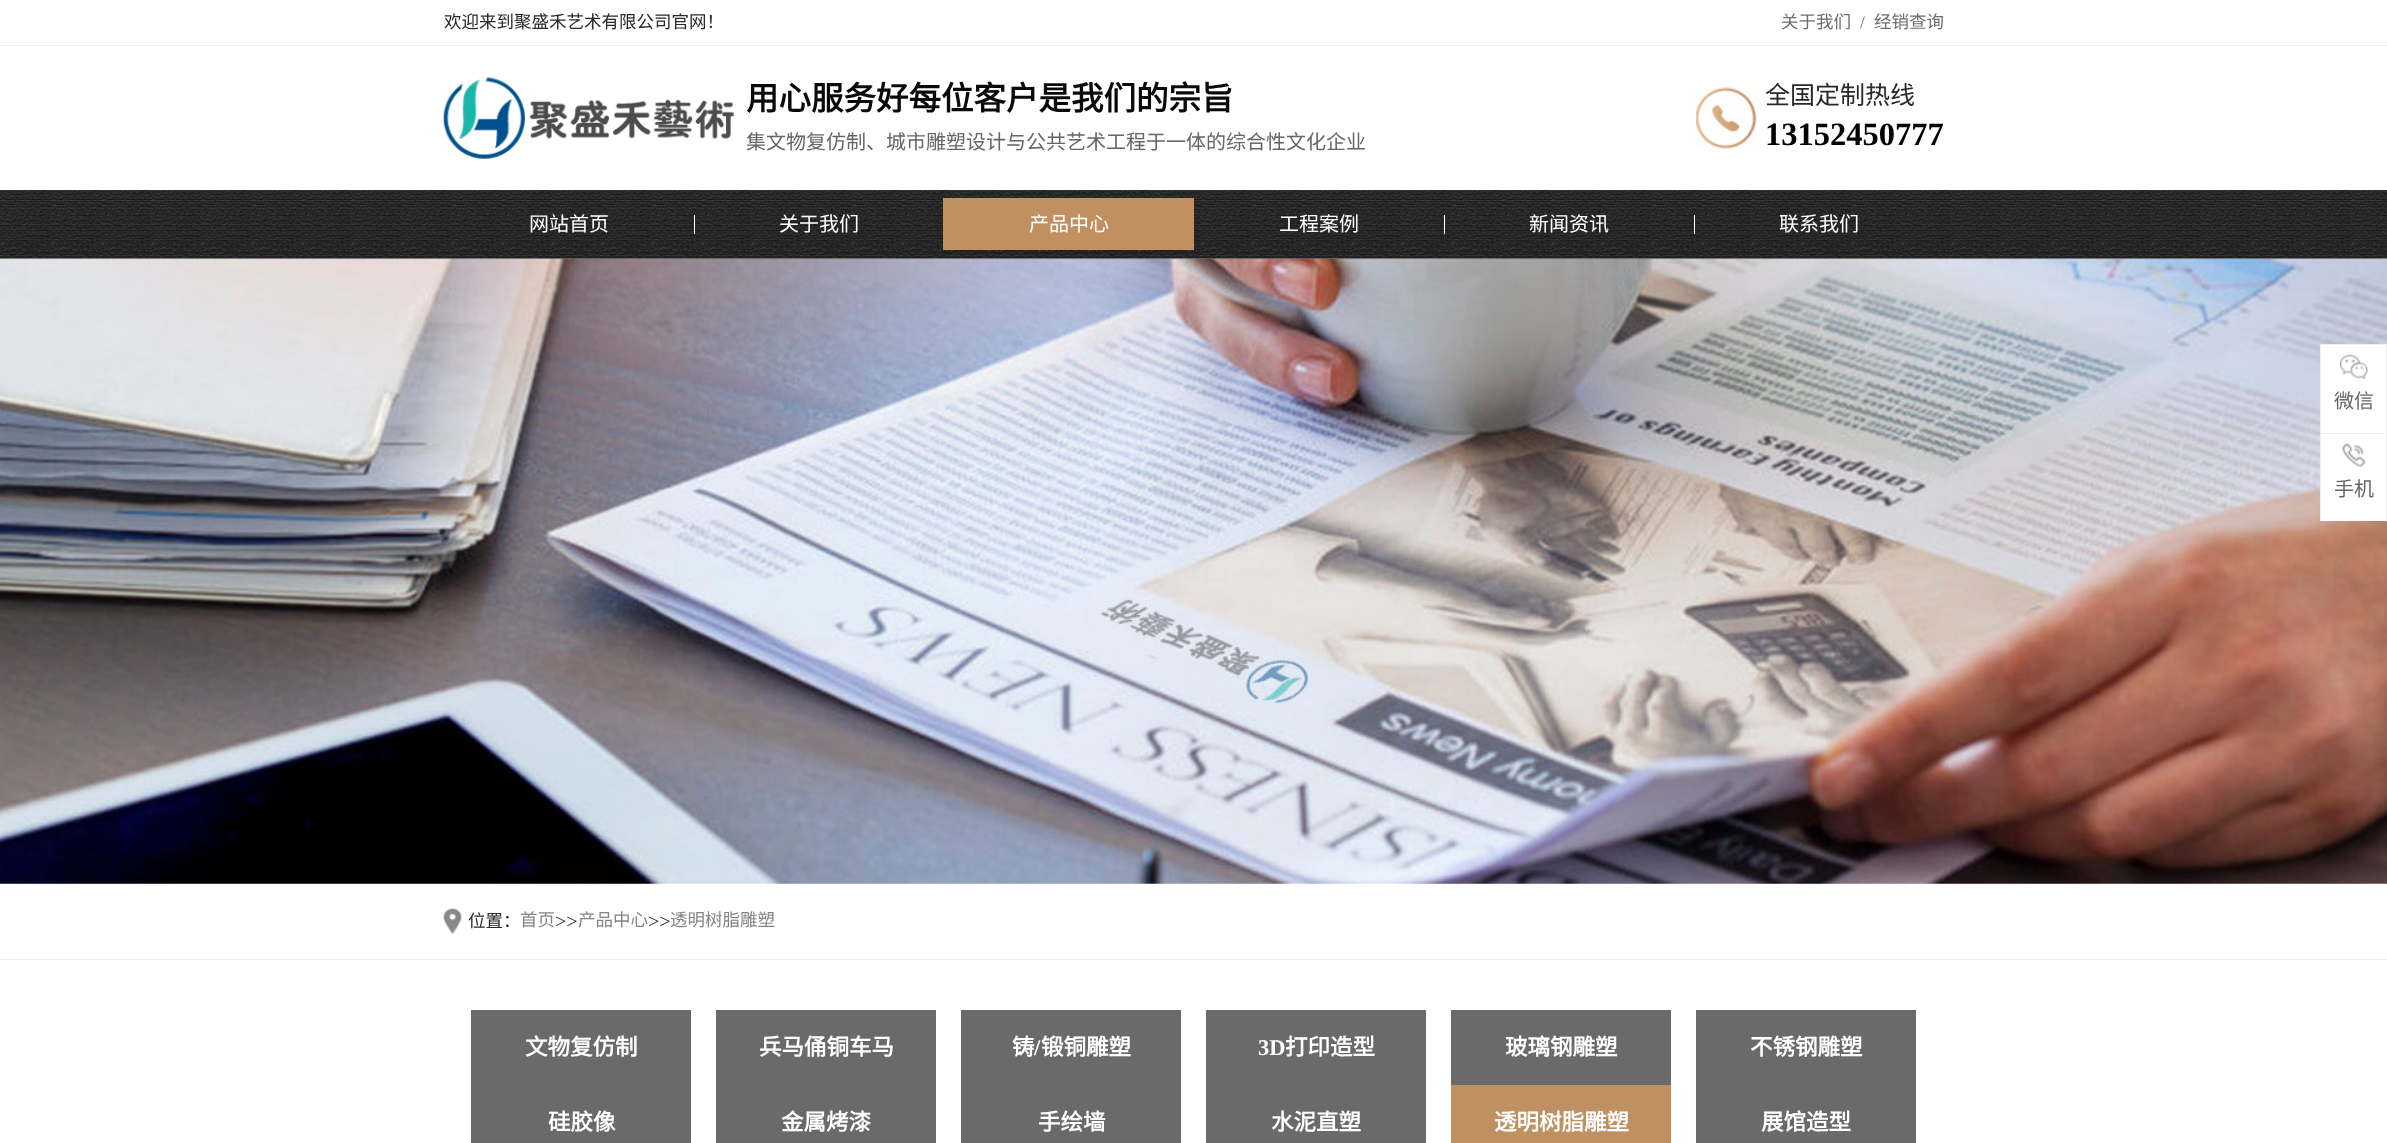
<!DOCTYPE html>
<meta charset="utf-8">
<style>body { margin: 0 } canvas { display: block }</style>
<canvas id="canvas" width="2387" height="1143"></canvas>
<img id="img1" src="images/1.png" hidden>
<img id="img2" src="images/2.png" hidden>
<img id="img3" src="images/3.png" hidden>
<img id="img4" src="images/4.png" hidden>
<img id="img5" src="images/5.png" hidden>
<img id="img6" src="images/6.png" hidden>
<img id="img7" src="images/7.png" hidden>
<script>
window.onload = function () {
    const canvas = document.getElementById('canvas');
    const context = canvas.getContext('2d');
    context.miterLimit = 4;
    context.fontKerning = 'normal';

    context.fillStyle = 'rgb(255, 255, 255)';
    context.fillRect(0, 0, 2387, 1143);
    context.fillStyle = 'rgb(239, 239, 239)';
    context.fillRect(0, 45, 2387, 1);
    context.drawImage(document.getElementById('img1'), 443, 77, 291, 82);
    context.drawImage(document.getElementById('img2'), 1696, 87, 61, 62);
    context.drawImage(document.getElementById('img3'), 0, 190, 2387, 69);
    context.fillStyle = 'rgb(255, 255, 255)';
    context.fillRect(694, 215, 1, 19);
    context.fillStyle = 'rgb(192, 144, 96)';
    context.fillRect(943, 198, 251, 52);
    context.fillStyle = 'rgb(255, 255, 255)';
    context.fillRect(1444, 215, 1, 19);
    context.fillRect(1694, 215, 1, 19);
    context.drawImage(document.getElementById('img4'), 0, 258, 2387, 626);
    context.fillRect(2321, 345, 65, 88);
    context.fillStyle = 'rgb(239, 239, 239)';
    context.fillRect(2320, 344, 67, 1);
    context.fillRect(2386, 344, 1, 89);
    context.fillRect(2320, 344, 1, 89);
    context.drawImage(document.getElementById('img5'), 2340, 354, 28, 25);
    context.fillStyle = 'rgb(255, 255, 255)';
    context.beginPath();
    context.moveTo(2322.5, 433);
    context.lineTo(2385.5, 433);
    context.bezierCurveTo(2387, 433, 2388, 434, 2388, 435.5);
    context.lineTo(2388, 521);
    context.lineTo(2320, 521);
    context.lineTo(2320, 435.5);
    context.bezierCurveTo(2320, 434, 2321, 433, 2322.5, 433);
    context.closePath();
    context.fill();
    context.fillStyle = 'rgb(239, 239, 239)';
    context.fillRect(2321, 433, 65, 1);
    context.fillRect(2386, 434, 1, 87);
    context.fillRect(2320, 434, 1, 87);
    context.drawImage(document.getElementById('img6'), 2342, 443, 23, 24);
    context.fillStyle = 'rgb(238, 238, 238)';
    context.fillRect(0, 959, 2387, 1);
    context.drawImage(document.getElementById('img7'), 443, 908, 19, 26);
    context.fillStyle = 'rgb(107, 106, 106)';
    context.fillRect(471, 1010, 220, 133);
    context.fillRect(716, 1010, 220, 133);
    context.fillRect(961, 1010, 220, 133);
    context.fillRect(1206, 1010, 220, 133);
    context.fillRect(1451, 1010, 220, 75);
    context.fillRect(1696, 1010, 220, 133);
    context.fillStyle = 'rgb(191, 144, 97)';
    context.fillRect(1451, 1085, 220, 58);
    context.font = '17.5px Noto Sans CJK SC';
    context.fillStyle = 'rgb(40, 40, 40)';
    context.fillText('欢迎来到聚盛禾艺术有限公司官网！', 444, 28);
    context.fillStyle = 'rgb(109, 109, 109)';
    context.fillText('关于我们', 1781, 28);
    context.font = '17.5px Liberation Serif';
    context.fillText('/', 1860, 28);
    context.font = '17.5px Noto Sans CJK SC';
    context.fillText('经销查询', 1874, 28);
    context.font = 'bold 32.5px Noto Sans CJK SC';
    context.fillStyle = 'rgb(9, 9, 9)';
    context.fillText('用心服务好每位客户是我们的宗旨', 746, 110);
    context.font = '20px Noto Sans CJK SC';
    context.fillStyle = 'rgb(102, 102, 102)';
    context.fillText('集文物复仿制、城市雕塑设计与公共艺术工程于一体的综合性文化企业', 746, 149);
    context.font = '25px Noto Sans CJK SC';
    context.fillStyle = 'rgb(40, 40, 40)';
    context.fillText('全国定制热线', 1765, 104);
    context.font = 'bold 32.5px Liberation Serif';
    context.fillStyle = 'rgb(1, 1, 1)';
    context.fillText('13152450777', 1765, 145);
    context.font = '20px Noto Sans CJK SC';
    context.fillStyle = 'rgb(255, 255, 255)';
    context.fillText('网站首页', 529, 231);
    context.fillText('关于我们', 779, 231);
    context.fillText('产品中心', 1029, 231);
    context.fillText('工程案例', 1279, 231);
    context.fillText('新闻资讯', 1529, 231);
    context.fillText('联系我们', 1779, 231);
    context.fillStyle = 'rgb(102, 102, 102)';
    context.fillText('微信', 2334, 408);
    context.fillText('手机', 2334, 496);
    context.font = '17.5px Noto Sans CJK SC';
    context.fillStyle = 'rgb(40, 40, 40)';
    context.fillText('位置：', 468, 927);
    context.fillStyle = 'rgb(132, 132, 132)';
    context.fillText('首页', 520, 926);
    context.font = '20px Liberation Serif';
    context.fillStyle = 'rgb(40, 40, 40)';
    context.fillText('>>', 555, 928);
    context.font = '17.5px Noto Sans CJK SC';
    context.fillStyle = 'rgb(132, 132, 132)';
    context.fillText('产品中心', 578, 926);
    context.font = '20px Liberation Serif';
    context.fillStyle = 'rgb(40, 40, 40)';
    context.fillText('>>', 648, 928);
    context.font = '17.5px Noto Sans CJK SC';
    context.fillStyle = 'rgb(132, 132, 132)';
    context.fillText('透明树脂雕塑', 670, 926);
    context.font = 'bold 22.5px Noto Sans CJK SC';
    context.fillStyle = 'rgb(255, 255, 255)';
    context.fillText('文物复仿制', 525, 1055);
    context.fillText('兵马俑铜车马', 759, 1055);
    context.fillText('铸', 1012, 1055);
    context.font = 'bold 22.5px Liberation Serif';
    context.fillText('/', 1034, 1055);
    context.font = 'bold 22.5px Noto Sans CJK SC';
    context.fillText('锻铜雕塑', 1041, 1055);
    context.font = 'bold 22.5px Liberation Serif';
    context.fillText('3D', 1258, 1055);
    context.font = 'bold 22.5px Noto Sans CJK SC';
    context.fillText('打印造型', 1285, 1055);
    context.fillText('玻璃钢雕塑', 1505, 1055);
    context.fillText('不锈钢雕塑', 1750, 1055);
    context.fillText('硅胶像', 548, 1130);
    context.fillText('金属烤漆', 781, 1130);
    context.fillText('手绘墙', 1038, 1130);
    context.fillText('水泥直塑', 1271, 1130);
    context.fillText('透明树脂雕塑', 1494, 1130);
    context.fillText('展馆造型', 1761, 1130);
};
</script>
